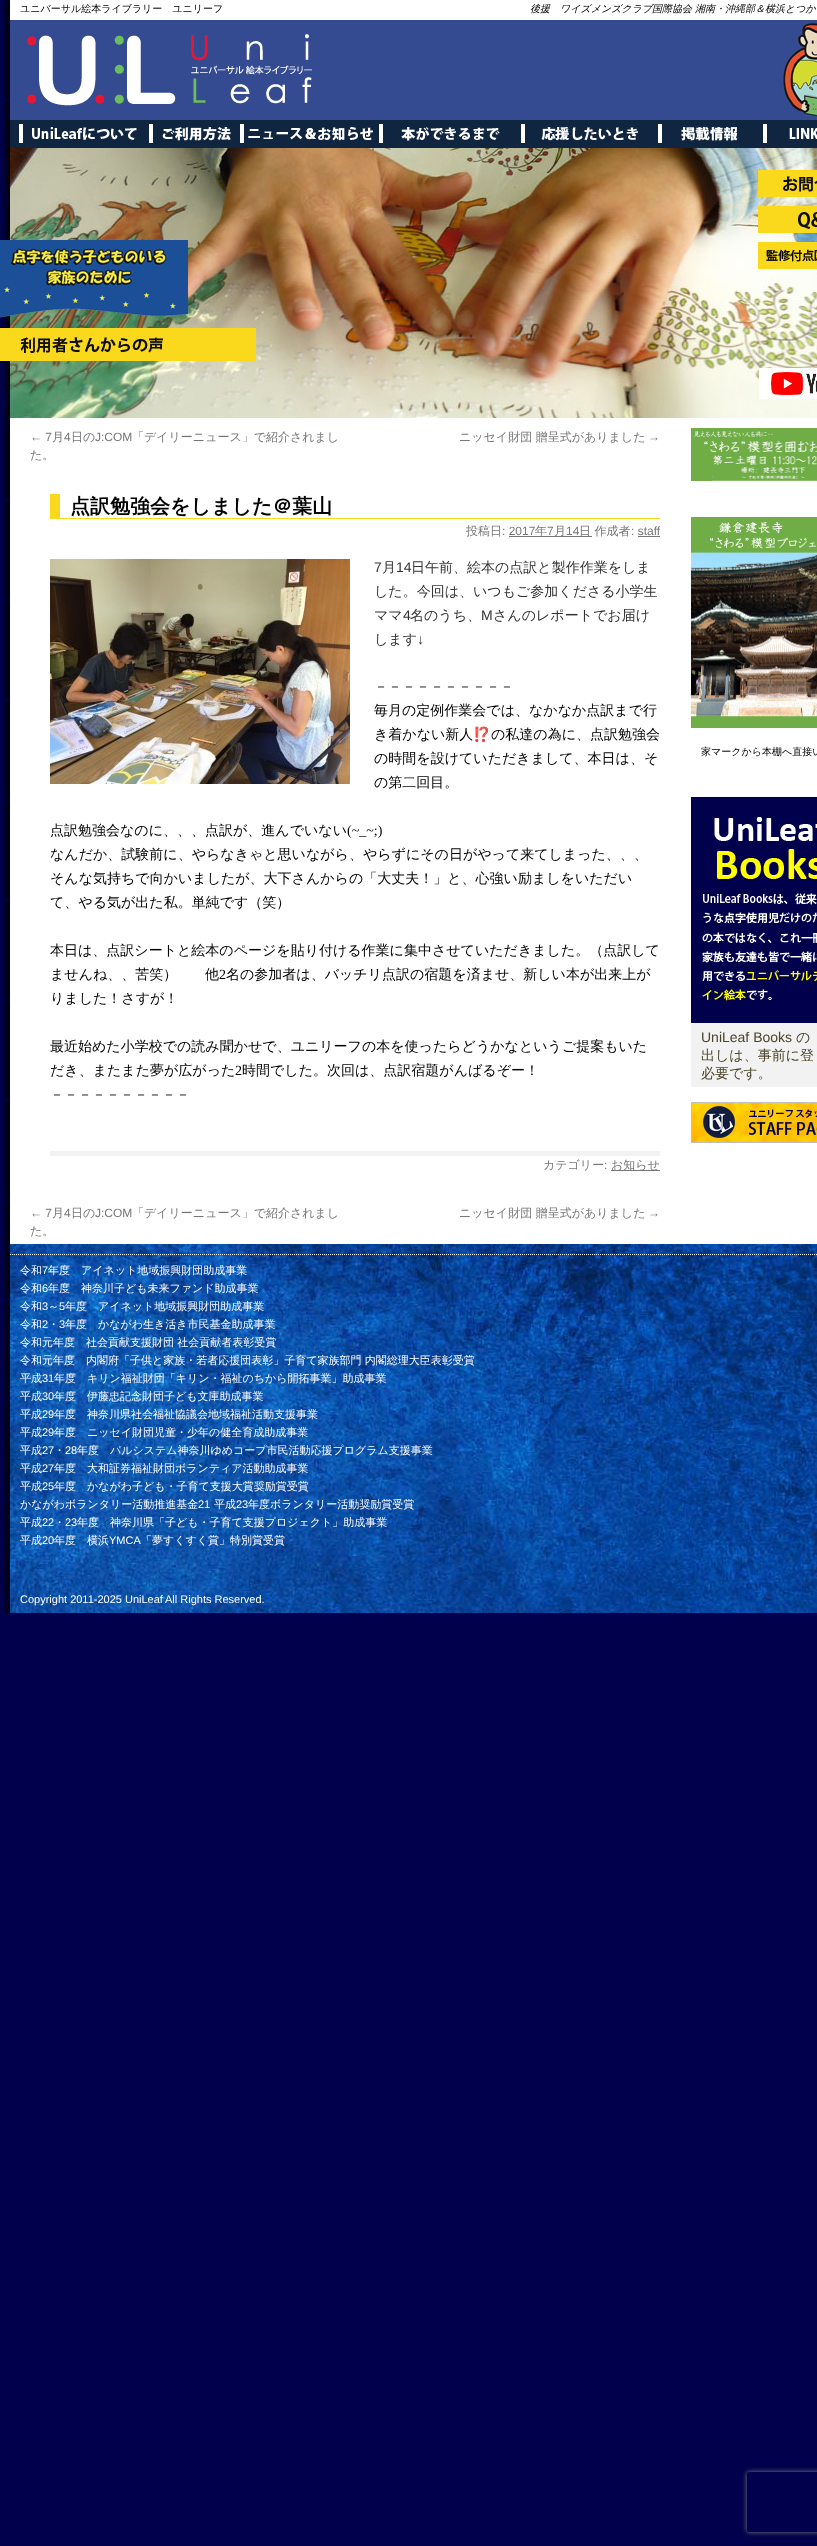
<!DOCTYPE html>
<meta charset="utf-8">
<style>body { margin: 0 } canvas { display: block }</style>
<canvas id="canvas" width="817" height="2546"></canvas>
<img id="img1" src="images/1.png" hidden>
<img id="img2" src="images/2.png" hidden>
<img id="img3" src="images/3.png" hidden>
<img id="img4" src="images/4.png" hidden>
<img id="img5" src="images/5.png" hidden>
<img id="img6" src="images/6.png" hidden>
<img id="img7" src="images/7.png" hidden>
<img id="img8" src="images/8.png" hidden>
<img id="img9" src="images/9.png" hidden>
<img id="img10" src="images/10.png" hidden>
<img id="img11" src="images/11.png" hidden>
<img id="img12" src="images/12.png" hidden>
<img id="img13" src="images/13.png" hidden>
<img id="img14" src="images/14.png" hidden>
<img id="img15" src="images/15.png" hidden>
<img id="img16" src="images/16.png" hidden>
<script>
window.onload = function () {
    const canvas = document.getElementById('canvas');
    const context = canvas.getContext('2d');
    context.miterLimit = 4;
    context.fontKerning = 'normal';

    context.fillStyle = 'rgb(0, 0, 76)';
    context.fillRect(0, 0, 817, 2546);
    context.drawImage(document.getElementById('img1'), 2, 0, 8, 1613);
    context.fillStyle = 'rgb(255, 255, 255)';
    context.fillRect(10, 0, 807, 20);
    context.drawImage(document.getElementById('img2'), 10, 20, 807, 100);
    context.drawImage(document.getElementById('img3'), 10, 120, 807, 28);
    context.drawImage(document.getElementById('img4'), 10, 148, 807, 270);
    context.drawImage(document.getElementById('img5'), 758, 170, 59, 27);
    context.drawImage(document.getElementById('img6'), 758, 206, 59, 27);
    context.drawImage(document.getElementById('img7'), 0, 240, 188, 78);
    context.drawImage(document.getElementById('img8'), 758, 242, 59, 27);
    context.drawImage(document.getElementById('img9'), 0, 328, 256, 33);
    context.fillRect(759, 368, 58, 31);
    context.drawImage(document.getElementById('img10'), 771, 372, 46, 23);
    context.fillRect(10, 418, 807, 826);
    context.fillStyle = 'rgb(250, 217, 28)';
    context.fillRect(60, 518, 600, 1);
    context.fillRect(50, 494, 10, 25);
    context.fillStyle = 'rgb(119, 119, 119)';
    context.fillRect(509, 536, 83, 1);
    context.fillRect(638, 536, 22, 1);
    context.fillStyle = 'rgb(242, 242, 242)';
    context.fillRect(50, 1151, 610, 5);
    context.drawImage(document.getElementById('img11'), 50, 559, 300, 225);
    context.fillStyle = 'rgb(119, 119, 119)';
    context.fillRect(611, 1170, 49, 1);
    context.drawImage(document.getElementById('img12'), 691, 428, 126, 53);
    context.drawImage(document.getElementById('img13'), 691, 517, 126, 211);
    context.drawImage(document.getElementById('img14'), 691, 797, 126, 226);
    context.fillStyle = 'rgb(242, 242, 242)';
    context.fillRect(691, 1023, 126, 64);
    context.drawImage(document.getElementById('img15'), 691, 1102, 126, 41);
    context.drawImage(document.getElementById('img16'), 10, 1244, 807, 369);
    context.beginPath();
    context.moveTo(10, 1254.5);
    context.lineTo(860, 1254.5);
    context.strokeStyle = 'rgb(255, 255, 255)';
    context.setLineDash([1, 1]);
    context.stroke();
    context.save();
    context.beginPath();
    context.moveTo(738, 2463);
    context.lineTo(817, 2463);
    context.lineTo(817, 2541);
    context.lineTo(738, 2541);
    context.closePath();
    context.moveTo(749, 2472);
    context.lineTo(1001, 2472);
    context.bezierCurveTo(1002, 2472, 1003, 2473, 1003, 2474);
    context.lineTo(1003, 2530);
    context.bezierCurveTo(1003, 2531, 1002, 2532, 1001, 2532);
    context.lineTo(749, 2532);
    context.bezierCurveTo(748, 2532, 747, 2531, 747, 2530);
    context.lineTo(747, 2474);
    context.bezierCurveTo(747, 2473, 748, 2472, 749, 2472);
    context.closePath();
    context.clip('evenodd');
    context.fillStyle = 'rgb(128, 128, 128)';
    context.filter = 'blur(2.5px)';
    context.beginPath();
    context.roundRect(747, 2472, 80, 60, 2);
    context.fill();
    context.filter = 'none';
    context.restore();
    context.font = '500 10px WenQuanYi Zen Hei';
    context.fillStyle = 'rgb(0, 0, 0)';
    context.fillText('ユニバーサル絵本ライブラリー　ユニリーフ', 20, 12);
    context.font = 'italic 500 10px WenQuanYi Zen Hei';
    context.fillText('後援　ワイズメンズクラブ国際協会 湘南・沖縄部＆横浜とつか', 530, 12);
    context.font = '12px Liberation Sans';
    context.fillStyle = 'rgb(119, 119, 119)';
    context.fillText('← 7', 30, 441);
    context.font = '500 12px WenQuanYi Zen Hei';
    context.fillText('月', 52, 441);
    context.font = '12px Liberation Sans';
    context.fillText('4', 64, 441);
    context.font = '500 12px WenQuanYi Zen Hei';
    context.fillText('日の', 71, 441);
    context.font = '12px Liberation Sans';
    context.fillText('J:COM', 95, 441);
    context.font = '500 12px WenQuanYi Zen Hei';
    context.fillText('「デイリーニュース」で紹介されまし', 132, 441);
    context.fillText('た。', 30, 459);
    context.fillText('ニッセイ財団 贈呈式がありました', 459, 441);
    context.font = '12px Liberation Sans';
    context.fillText('→', 648, 441);
    context.font = 'bold 20px WenQuanYi Zen Hei';
    context.fillStyle = 'rgb(0, 0, 0)';
    context.fillText('点訳勉強会をしました＠葉山', 70, 513);
    context.font = '500 12px WenQuanYi Zen Hei';
    context.fillStyle = 'rgb(119, 119, 119)';
    context.fillText('投稿日', 466, 535);
    context.font = '12px Liberation Sans';
    context.fillText(': 2017', 502, 535);
    context.font = '500 12px WenQuanYi Zen Hei';
    context.fillText('年', 535, 535);
    context.font = '12px Liberation Sans';
    context.fillText('7', 547, 535);
    context.font = '500 12px WenQuanYi Zen Hei';
    context.fillText('月', 554, 535);
    context.font = '12px Liberation Sans';
    context.fillText('14', 566, 535);
    context.font = '500 12px WenQuanYi Zen Hei';
    context.fillText('日 作成者', 579, 535);
    context.font = '12px Liberation Sans';
    context.fillText(': staff', 631, 535);
    context.font = '14px Liberation Sans';
    context.fillStyle = 'rgb(51, 51, 51)';
    context.fillText('7', 374, 572);
    context.font = '500 14px WenQuanYi Zen Hei';
    context.fillText('月', 382, 572);
    context.font = '14px Liberation Sans';
    context.fillText('14', 396, 572);
    context.font = '500 14px WenQuanYi Zen Hei';
    context.fillText('日午前、絵本の点訳と製作作業をしま', 411, 572);
    context.fillText('した。今回は、いつもご参加くださる小学生', 374, 596);
    context.fillText('ママ', 374, 620);
    context.font = '14px Liberation Sans';
    context.fillText('4', 403, 620);
    context.font = '500 14px WenQuanYi Zen Hei';
    context.fillText('名のうち、', 410, 620);
    context.font = '14px Liberation Sans';
    context.fillText('M', 481, 620);
    context.font = '500 14px WenQuanYi Zen Hei';
    context.fillText('さんのレポートでお届け', 493, 620);
    context.fillText('します', 374, 644);
    context.font = '14px Liberation Sans';
    context.fillText('↓', 417, 644);
    context.font = '500 14px WenQuanYi Zen Hei';
    context.fillStyle = 'rgb(0, 0, 0)';
    context.fillText('－－－－－－－－－－', 374, 691);
    context.fillText('毎月の定例作業会では、なかなか点訳まで行', 374, 715);
    context.fillText('き着かない新人', 374, 739);
    context.font = '14px Noto Color Emoji';
    context.fillText('⁉️', 473, 739);
    context.font = '500 14px WenQuanYi Zen Hei';
    context.fillText('の私達の為に、点訳勉強会', 491, 739);
    context.fillText('の時間を設けていただきまして、本日は、そ', 374, 763);
    context.fillText('の第二回目。', 374, 787);
    context.fillText('点訳勉強会なのに、、、点訳が、進んでいない', 50, 835);
    context.font = '14px Liberation Serif';
    context.fillText('(~_~;)', 347, 835);
    context.font = '500 14px WenQuanYi Zen Hei';
    context.fillText('なんだか、試験前に、やらなきゃと思いながら、やらずにその日がやって来てしまった、、、', 50, 859);
    context.fillText('そんな気持ちで向かいましたが、大下さんからの「大丈夫！」と、心強い励ましをいただい', 50, 883);
    context.fillText('て、やる気が出た私。単純です（笑）', 50, 907);
    context.fillText('本日は、点訳シートと絵本のページを貼り付ける作業に集中させていただきました。（点訳して', 50, 955);
    context.fillText('ませんね、、苦笑）', 50, 979);
    context.fillText('他', 205, 979);
    context.font = '14px Liberation Serif';
    context.fillText('2', 219, 979);
    context.font = '500 14px WenQuanYi Zen Hei';
    context.fillText('名の参加者は、バッチリ点訳の宿題を済ませ、新しい本が出来上が', 226, 979);
    context.fillText('りました！さすが！', 50, 1003);
    context.fillText('最近始めた小学校での読み聞かせで、ユニリーフの本を使ったらどうかなというご提案もいた', 50, 1051);
    context.fillText('だき、またまた夢が広がった', 50, 1075);
    context.font = '14px Liberation Serif';
    context.fillText('2', 235, 1075);
    context.font = '500 14px WenQuanYi Zen Hei';
    context.fillText('時間でした。次回は、点訳宿題がんばるぞー！', 242, 1075);
    context.fillText('－－－－－－－－－－', 50, 1099);
    context.font = '500 12px WenQuanYi Zen Hei';
    context.fillStyle = 'rgb(119, 119, 119)';
    context.fillText('カテゴリー', 543, 1169);
    context.font = '12px Liberation Sans';
    context.fillText(':', 604, 1169);
    context.font = '500 12px WenQuanYi Zen Hei';
    context.fillText('お知らせ', 611, 1169);
    context.font = '12px Liberation Sans';
    context.fillText('← 7', 30, 1217);
    context.font = '500 12px WenQuanYi Zen Hei';
    context.fillText('月', 52, 1217);
    context.font = '12px Liberation Sans';
    context.fillText('4', 64, 1217);
    context.font = '500 12px WenQuanYi Zen Hei';
    context.fillText('日の', 71, 1217);
    context.font = '12px Liberation Sans';
    context.fillText('J:COM', 95, 1217);
    context.font = '500 12px WenQuanYi Zen Hei';
    context.fillText('「デイリーニュース」で紹介されまし', 132, 1217);
    context.fillText('た。', 30, 1235);
    context.fillText('ニッセイ財団 贈呈式がありました', 459, 1217);
    context.font = '12px Liberation Sans';
    context.fillText('→', 648, 1217);
    context.font = '500 10px WenQuanYi Zen Hei';
    context.fillStyle = 'rgb(0, 0, 0)';
    context.fillText('家マークから本棚へ直接い', 701, 755);
    context.font = '14px Liberation Sans';
    context.fillStyle = 'rgb(74, 69, 42)';
    context.fillText('UniLeaf Books', 701, 1042);
    context.font = '500 14px WenQuanYi Zen Hei';
    context.fillText('の', 796, 1042);
    context.fillText('出しは、事前に登', 701, 1060);
    context.fillText('必要です。', 701, 1078);
    context.font = '500 11px WenQuanYi Zen Hei';
    context.fillStyle = 'rgb(255, 255, 255)';
    context.fillText('令和', 20, 1274);
    context.font = '11px Liberation Sans';
    context.fillText('7', 42, 1274);
    context.font = '500 11px WenQuanYi Zen Hei';
    context.fillText('年度　アイネット地域振興財団助成事業', 48, 1274);
    context.fillText('令和', 20, 1292);
    context.font = '11px Liberation Sans';
    context.fillText('6', 42, 1292);
    context.font = '500 11px WenQuanYi Zen Hei';
    context.fillText('年度　神奈川子ども未来ファンド助成事業', 48, 1292);
    context.fillText('令和', 20, 1310);
    context.font = '11px Liberation Sans';
    context.fillText('3', 42, 1310);
    context.font = '500 11px WenQuanYi Zen Hei';
    context.fillText('～', 48, 1310);
    context.font = '11px Liberation Sans';
    context.fillText('5', 59, 1310);
    context.font = '500 11px WenQuanYi Zen Hei';
    context.fillText('年度　アイネット地域振興財団助成事業', 65, 1310);
    context.fillText('令和', 20, 1328);
    context.font = '11px Liberation Sans';
    context.fillText('2', 42, 1328);
    context.font = '500 11px WenQuanYi Zen Hei';
    context.fillText('・', 48, 1328);
    context.font = '11px Liberation Sans';
    context.fillText('3', 59, 1328);
    context.font = '500 11px WenQuanYi Zen Hei';
    context.fillText('年度　かながわ生き活き市民基金助成事業', 65, 1328);
    context.fillText('令和元年度　社会貢献支援財団 社会貢献者表彰受賞', 20, 1346);
    context.fillText('令和元年度　内閣府「子供と家族・若者応援団表彰」子育て家族部門 内閣総理大臣表彰受賞', 20, 1364);
    context.fillText('平成', 20, 1382);
    context.font = '11px Liberation Sans';
    context.fillText('31', 42, 1382);
    context.font = '500 11px WenQuanYi Zen Hei';
    context.fillText('年度　キリン福祉財団「キリン・福祉のちから開拓事業」助成事業', 54, 1382);
    context.fillText('平成', 20, 1400);
    context.font = '11px Liberation Sans';
    context.fillText('30', 42, 1400);
    context.font = '500 11px WenQuanYi Zen Hei';
    context.fillText('年度　伊藤忠記念財団子ども文庫助成事業', 54, 1400);
    context.fillText('平成', 20, 1418);
    context.font = '11px Liberation Sans';
    context.fillText('29', 42, 1418);
    context.font = '500 11px WenQuanYi Zen Hei';
    context.fillText('年度　神奈川県社会福祉協議会地域福祉活動支援事業', 54, 1418);
    context.fillText('平成', 20, 1436);
    context.font = '11px Liberation Sans';
    context.fillText('29', 42, 1436);
    context.font = '500 11px WenQuanYi Zen Hei';
    context.fillText('年度　ニッセイ財団児童・少年の健全育成助成事業', 54, 1436);
    context.fillText('平成', 20, 1454);
    context.font = '11px Liberation Sans';
    context.fillText('27', 42, 1454);
    context.font = '500 11px WenQuanYi Zen Hei';
    context.fillText('・', 54, 1454);
    context.font = '11px Liberation Sans';
    context.fillText('28', 65, 1454);
    context.font = '500 11px WenQuanYi Zen Hei';
    context.fillText('年度　パルシステム神奈川ゆめコープ市民活動応援プログラム支援事業', 77, 1454);
    context.fillText('平成', 20, 1472);
    context.font = '11px Liberation Sans';
    context.fillText('27', 42, 1472);
    context.font = '500 11px WenQuanYi Zen Hei';
    context.fillText('年度　大和証券福祉財団ボランティア活動助成事業', 54, 1472);
    context.fillText('平成', 20, 1490);
    context.font = '11px Liberation Sans';
    context.fillText('25', 42, 1490);
    context.font = '500 11px WenQuanYi Zen Hei';
    context.fillText('年度　かながわ子ども・子育て支援大賞奨励賞受賞', 54, 1490);
    context.fillText('かながわボランタリー活動推進基金', 20, 1508);
    context.font = '11px Liberation Sans';
    context.fillText('21', 198, 1508);
    context.font = '500 11px WenQuanYi Zen Hei';
    context.fillText('平成', 214, 1508);
    context.font = '11px Liberation Sans';
    context.fillText('23', 236, 1508);
    context.font = '500 11px WenQuanYi Zen Hei';
    context.fillText('年度ボランタリー活動奨励賞受賞', 248, 1508);
    context.fillText('平成', 20, 1526);
    context.font = '11px Liberation Sans';
    context.fillText('22', 42, 1526);
    context.font = '500 11px WenQuanYi Zen Hei';
    context.fillText('・', 54, 1526);
    context.font = '11px Liberation Sans';
    context.fillText('23', 65, 1526);
    context.font = '500 11px WenQuanYi Zen Hei';
    context.fillText('年度　神奈川県「子ども・子育て支援プロジェクト」助成事業', 77, 1526);
    context.fillText('平成', 20, 1544);
    context.font = '11px Liberation Sans';
    context.fillText('20', 42, 1544);
    context.font = '500 11px WenQuanYi Zen Hei';
    context.fillText('年度　横浜', 54, 1544);
    context.font = '11px Liberation Sans';
    context.fillText('YMCA', 109, 1544);
    context.font = '500 11px WenQuanYi Zen Hei';
    context.fillText('「夢すくすく賞」特別賞受賞', 141, 1544);
    context.font = '11px Liberation Sans';
    context.fillText('Copyright 2011-2025 UniLeaf', 20, 1603);
    context.fillText('All Rights Reserved.', 165, 1603);
};
</script>
